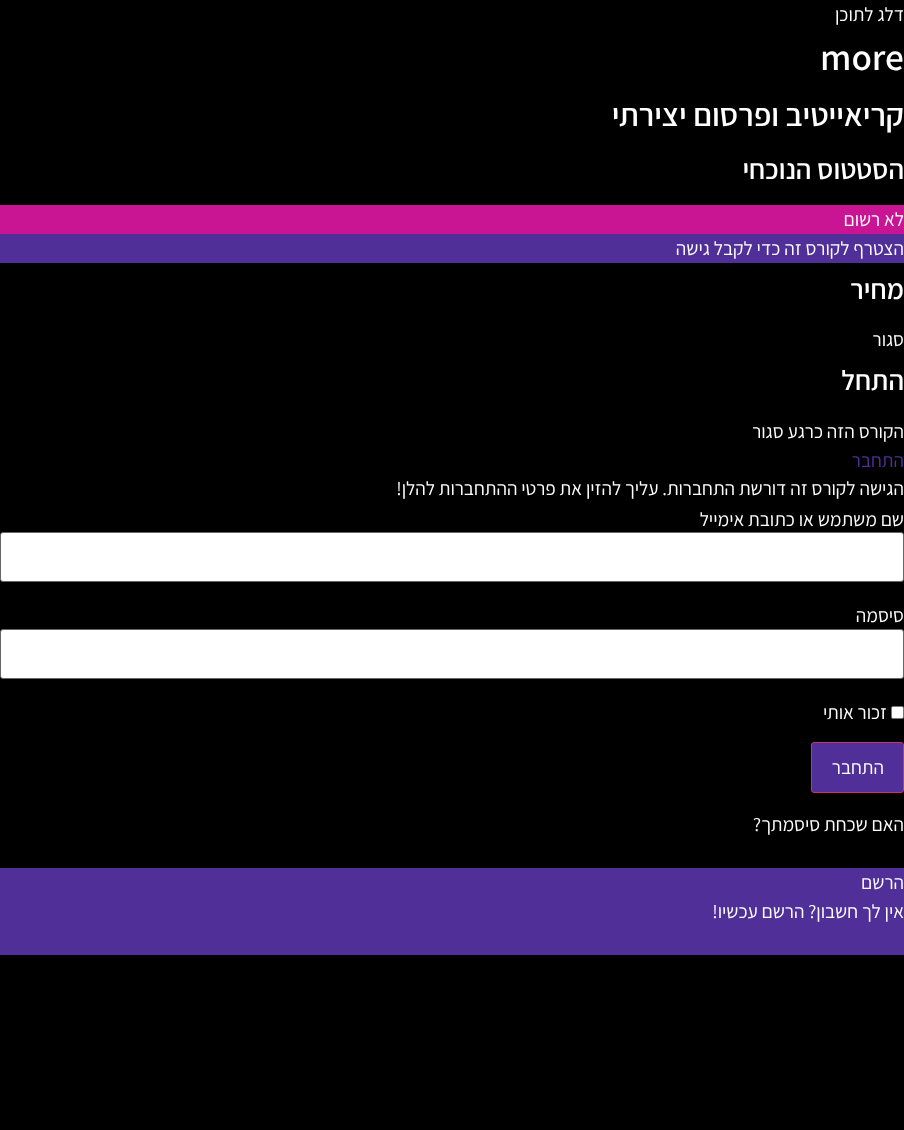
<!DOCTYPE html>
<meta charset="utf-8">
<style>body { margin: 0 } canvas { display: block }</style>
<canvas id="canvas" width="904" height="1130"></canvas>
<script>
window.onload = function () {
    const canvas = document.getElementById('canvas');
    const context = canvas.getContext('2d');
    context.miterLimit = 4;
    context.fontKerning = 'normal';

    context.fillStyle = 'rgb(0, 0, 0)';
    context.fillRect(0, 0, 904, 1130);
    context.fillStyle = 'rgb(201, 20, 147)';
    context.fillRect(0, 205, 904, 29);
    context.fillStyle = 'rgb(80, 47, 153)';
    context.fillRect(0, 234, 904, 29);
    context.fillStyle = 'rgb(255, 255, 255)';
    context.beginPath();
    context.roundRect(0.5, 532.5, 903, 49, 2.5);
    context.fill();
    context.strokeStyle = 'rgb(102, 102, 102)';
    context.stroke();
    context.beginPath();
    context.roundRect(0.5, 629.5, 903, 49, 2.5);
    context.fill();
    context.stroke();
    context.beginPath();
    context.roundRect(891.5, 706.5, 12, 12, 1.5);
    context.fill();
    context.strokeStyle = 'rgb(118, 118, 118)';
    context.stroke();
    context.fillStyle = 'rgb(80, 47, 153)';
    context.beginPath();
    context.roundRect(811.5, 742.5, 92, 50, 2.5);
    context.fill();
    context.strokeStyle = 'rgb(204, 51, 102)';
    context.stroke();
    context.fillRect(0, 868, 904, 87);
    context.direction = 'rtl';
    context.font = '19.25px Assistant';
    context.fillStyle = 'rgb(255, 255, 255)';
    context.fillText('דלג לתוכן', 904, 21);
    context.direction = 'ltr';
    context.font = '600 37.5px Assistant';
    context.fillText('more', 820, 70);
    context.direction = 'rtl';
    context.font = '600 32.1px Assistant';
    context.fillText('קריאייטיב ופרסום יצירתי', 904, 126);
    context.font = '600 28px Assistant';
    context.fillText('הסטטוס הנוכחי', 904, 179);
    context.font = '19.25px Assistant';
    context.fillText('לא רשום', 904, 226);
    context.fillText('הצטרף לקורס זה כדי לקבל גישה', 904, 255);
    context.font = '600 28px Assistant';
    context.fillText('מחיר', 904, 299);
    context.font = '19.25px Assistant';
    context.fillText('סגור', 904, 346);
    context.font = '600 28px Assistant';
    context.fillText('התחל', 904, 390);
    context.font = '19.25px Assistant';
    context.fillText('הקורס הזה כרגע סגור', 904, 438);
    context.fillStyle = 'rgb(80, 47, 153)';
    context.fillText('התחבר', 904, 467);
    context.fillStyle = 'rgb(255, 255, 255)';
    context.fillText('הגישה לקורס זה דורשת התחברות. עליך להזין את פרטי ההתחברות להלן!', 904, 495);
    context.fillText('שם משתמש או כתובת אימייל', 904, 526);
    context.fillText('סיסמה', 904, 622);
    context.fillText('זכור אותי', 887, 719);
    context.fillText('התחבר', 884, 774);
    context.fillText('האם שכחת סיסמתך?', 904, 831);
    context.fillText('הרשם', 904, 889);
    context.fillText('אין לך חשבון? הרשם עכשיו!', 904, 918);
};
</script>
